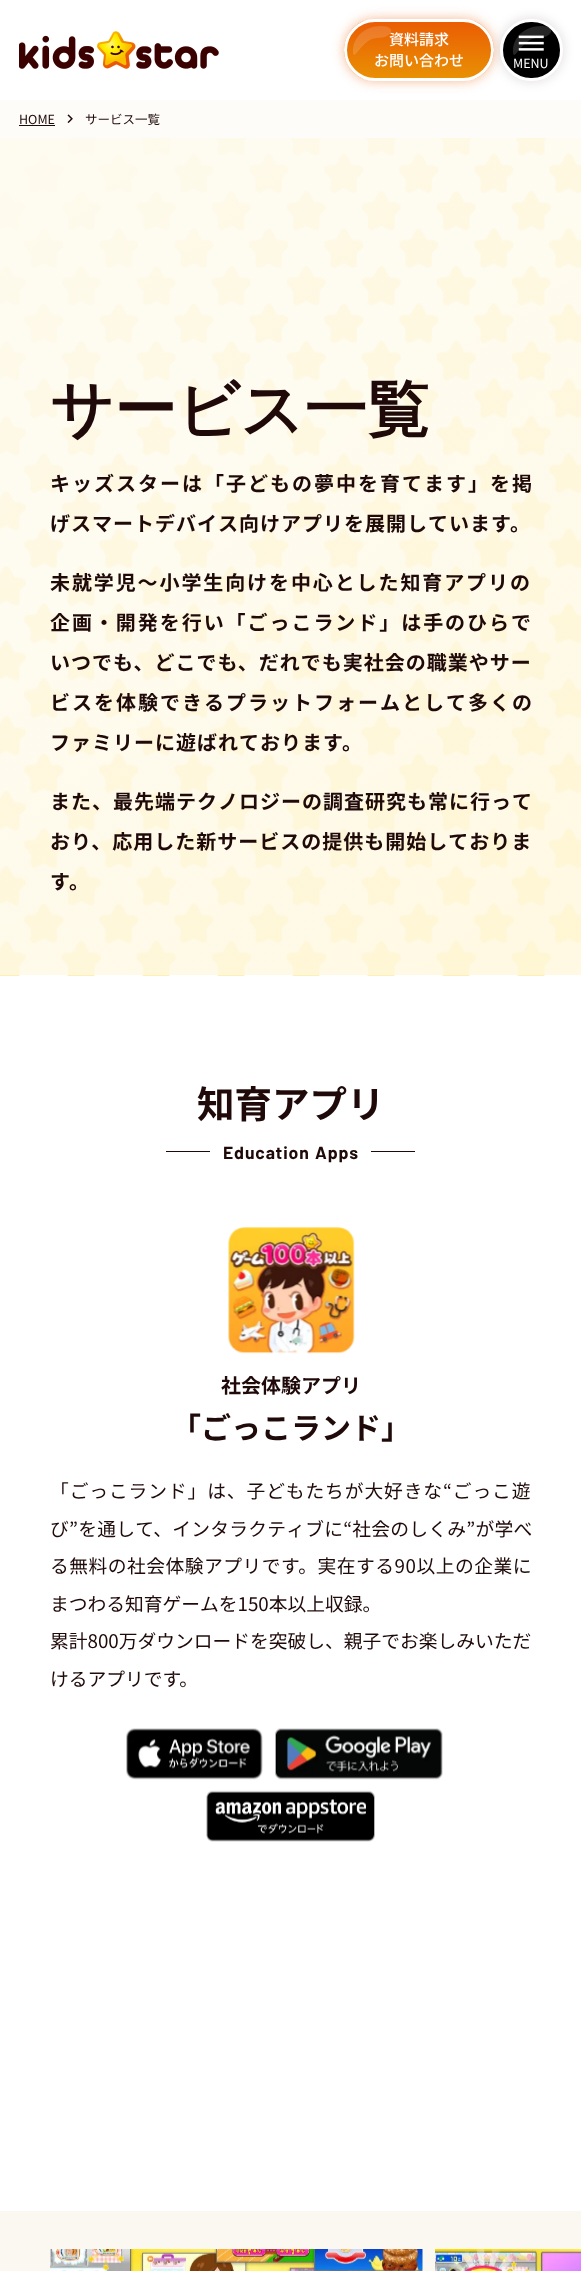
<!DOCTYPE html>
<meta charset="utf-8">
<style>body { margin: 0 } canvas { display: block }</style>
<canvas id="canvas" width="581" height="2271"></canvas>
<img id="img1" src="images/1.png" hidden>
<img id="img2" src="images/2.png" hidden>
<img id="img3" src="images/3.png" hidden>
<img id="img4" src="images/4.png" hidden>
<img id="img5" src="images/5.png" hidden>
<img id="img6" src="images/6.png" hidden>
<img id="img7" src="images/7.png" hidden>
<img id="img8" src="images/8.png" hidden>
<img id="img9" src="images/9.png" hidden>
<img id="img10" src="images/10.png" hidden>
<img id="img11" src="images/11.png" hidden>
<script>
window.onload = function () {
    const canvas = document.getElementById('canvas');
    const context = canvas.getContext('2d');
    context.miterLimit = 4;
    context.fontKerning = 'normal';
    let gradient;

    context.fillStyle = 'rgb(255, 255, 255)';
    context.fillRect(0, 0, 581, 2271);
    context.drawImage(document.getElementById('img1'), 19, 31, 200, 38);
    context.fillStyle = 'rgba(253, 239, 230, 0.4)';
    context.filter = 'blur(6px)';
    context.beginPath();
    context.roundRect(344, 19, 150, 62, 31);
    context.fill();
    context.filter = 'none';
    context.beginPath();
    context.roundRect(345.5, 20.5, 147, 59, 29.5);
    context.strokeStyle = 'rgb(255, 255, 255)';
    context.lineWidth = 3;
    context.stroke();
    context.drawImage(document.getElementById('img2'), 19, 31, 200, 38);
    context.fillStyle = 'rgba(234, 92, 4, 0.4)';
    context.filter = 'blur(6px)';
    context.beginPath();
    context.roundRect(344, 19, 150, 62, 31);
    context.fill();
    context.filter = 'none';
    context.save();
    context.beginPath();
    context.roundRect(344, 19, 150, 62, 31);
    context.clip();
    gradient = context.createLinearGradient(419, 21, 419, 79);
    gradient.addColorStop(0, 'rgb(234, 92, 4)');
    gradient.addColorStop(1, 'rgb(233, 145, 4)');
    context.fillStyle = gradient;
    context.fillRect(344, 21, 150, 58);
    context.restore();
    context.beginPath();
    context.roundRect(345.5, 20.5, 147, 59, 29.5);
    context.stroke();
    context.fillStyle = 'rgba(31, 9, 9, 0.15)';
    context.filter = 'blur(6px)';
    context.beginPath();
    context.roundRect(500, 19, 63, 62, 31);
    context.fill();
    context.filter = 'none';
    context.fillStyle = 'rgb(0, 0, 0)';
    context.beginPath();
    context.roundRect(501.5, 20.5, 60, 59, 29.5);
    context.fill();
    context.stroke();
    context.drawImage(document.getElementById('img3'), 518, 35, 26, 16);
    context.fillStyle = 'rgba(255, 255, 255, 0.15)';
    context.beginPath();
    context.moveTo(541, 26);
    context.bezierCurveTo(557, 26, 553, 38, 537, 38);
    context.bezierCurveTo(522, 38, 513, 65, 513, 51);
    context.bezierCurveTo(513, 37, 525, 26, 541, 26);
    context.closePath();
    context.fill();
    context.fillStyle = 'rgb(253, 252, 248)';
    context.fillRect(0, 100, 581, 38);
    context.fillStyle = 'rgb(31, 9, 9)';
    context.fillRect(19, 125, 36, 1);
    context.drawImage(document.getElementById('img4'), 67, 114, 6, 9);
    context.drawImage(document.getElementById('img5'), 0, 138, 581, 838);
    gradient = context.createLinearGradient(-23, 155, 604, 957);
    gradient.addColorStop(0, 'rgb(254, 251, 240)');
    gradient.addColorStop(0.32, 'rgba(254, 251, 240, 0.9)');
    gradient.addColorStop(1, 'rgba(255, 248, 223, 0.9)');
    context.fillStyle = gradient;
    context.fillRect(0, 138, 581, 837);
    context.fillStyle = 'rgb(31, 9, 9)';
    context.fillRect(166, 1151, 44, 1);
    context.fillRect(371, 1151, 44, 1);
    context.drawImage(document.getElementById('img6'), 228, 1227, 127, 127);
    context.drawImage(document.getElementById('img7'), 126, 1728, 137, 52);
    context.drawImage(document.getElementById('img8'), 275, 1728, 168, 52);
    context.drawImage(document.getElementById('img9'), 206, 1790, 169, 52);
    context.fillStyle = 'rgb(251, 248, 241)';
    context.fillRect(0, 2211, 581, 60);
    context.drawImage(document.getElementById('img10'), 50, 2249, 373, 22);
    context.drawImage(document.getElementById('img11'), 435, 2249, 146, 22);
    context.font = '500 15px Noto Sans JP';
    context.fillStyle = 'rgb(255, 255, 255)';
    context.fillText('資料請求', 389, 45);
    context.fillText('お問い合わせ', 374, 66);
    context.fillStyle = 'rgba(255, 255, 255, 0.15)';
    context.beginPath();
    context.moveTo(381, 26);
    context.bezierCurveTo(397, 26, 393, 38, 377, 38);
    context.bezierCurveTo(362, 38, 353, 65, 353, 51);
    context.bezierCurveTo(353, 37, 365, 26, 381, 26);
    context.closePath();
    context.fill();
    context.font = '12.5px Noto Sans JP';
    context.fillStyle = 'rgb(255, 255, 255)';
    context.fillText('MENU', 513, 68);
    context.fillStyle = 'rgb(31, 9, 9)';
    context.fillText('HOME', 19, 124);
    context.fillText('サービス一覧', 85, 124);
    context.font = 'bold 62.5px WenQuanYi Zen Hei';
    context.fillText('サービス一覧', 50, 431);
    context.letterSpacing = '2px';
    context.font = 'bold 20px Noto Sans JP';
    context.fillText('キッズスターは「子どもの夢中を育てます」を掲', 50, 491);
    context.letterSpacing = '1px';
    context.fillText('げスマートデバイス向けアプリを展開しています。', 50, 531);
    context.letterSpacing = '1.9px';
    context.fillText('未就学児～小学生向けを中心とした知育アプリの', 50, 590);
    context.letterSpacing = '1.95px';
    context.fillText('企画・開発を行い「ごっこランド」は手のひらで', 50, 630);
    context.letterSpacing = '1px';
    context.fillText('いつでも、どこでも、だれでも実社会の職業やサー', 50, 670);
    context.letterSpacing = '2px';
    context.fillText('ビスを体験できるプラットフォームとして多くの', 50, 710);
    context.letterSpacing = '1px';
    context.fillText('ファミリーに遊ばれております。', 50, 750);
    context.fillText('また、最先端テクノロジーの調査研究も常に行って', 50, 809);
    context.fillText('おり、応用した新サービスの提供も開始しておりま', 50, 849);
    context.fillText('す。', 50, 889);
    context.letterSpacing = '0px';
    context.font = 'bold 37.5px Noto Sans JP';
    context.fillText('知育アプリ', 197, 1118);
    context.letterSpacing = '0.9px';
    context.wordSpacing = '1px';
    context.font = 'bold 17.5px Barlow';
    context.fillText('Education Apps', 223, 1159);
    context.letterSpacing = '0px';
    context.wordSpacing = '0px';
    context.font = 'bold 20px Noto Sans JP';
    context.fillText('社会体験アプリ', 221, 1393);
    context.font = 'bold 30px Noto Sans JP';
    context.fillText('「ごっこランド」', 171, 1439);
    context.letterSpacing = '0.9px';
    context.font = '18.75px Noto Sans JP';
    context.fillText('「ごっこランド」は、子どもたちが大好きな“ごっこ遊', 50, 1498);
    context.letterSpacing = '0.25px';
    context.fillText('び”を通して、インタラクティブに“社会のしくみ”が学べ', 50, 1536);
    context.letterSpacing = '0.5px';
    context.fillText('る無料の社会体験アプリです。実在する90以上の企業に', 50, 1573);
    context.letterSpacing = '0px';
    context.fillText('まつわる知育ゲームを150本以上収録。', 50, 1611);
    context.fillText('累計800万ダウンロードを突破し、親子でお楽しみいただ', 50, 1648);
    context.fillText('けるアプリです。', 50, 1686);
};
</script>
